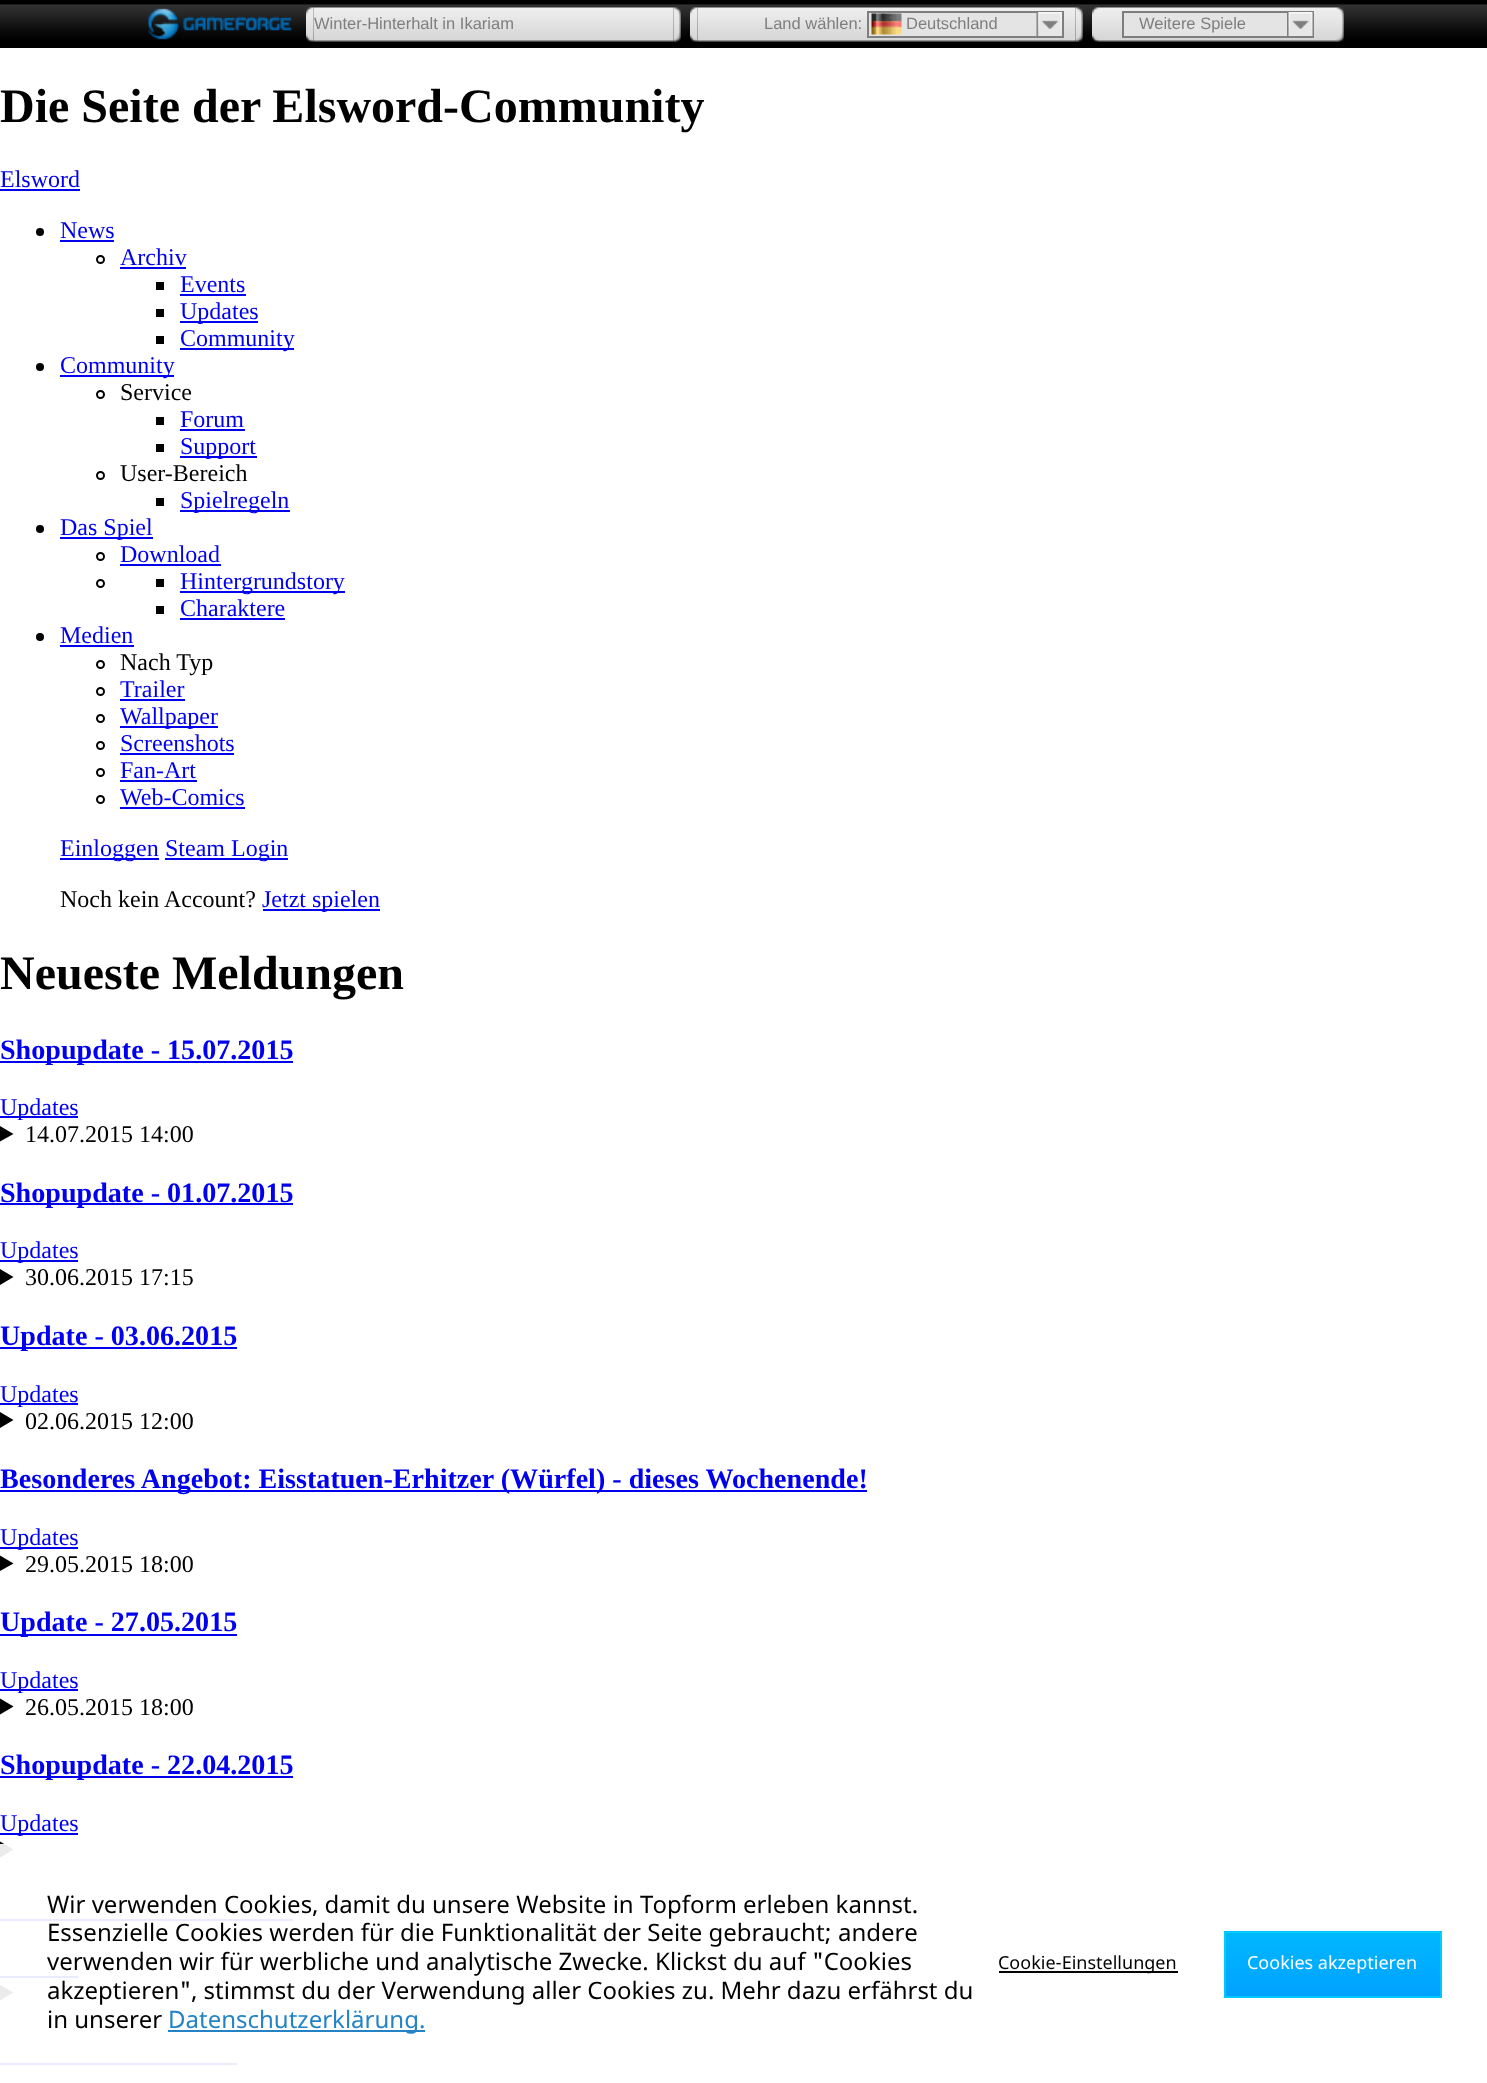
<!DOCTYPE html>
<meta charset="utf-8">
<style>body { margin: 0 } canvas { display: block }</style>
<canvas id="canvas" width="1487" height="2083"></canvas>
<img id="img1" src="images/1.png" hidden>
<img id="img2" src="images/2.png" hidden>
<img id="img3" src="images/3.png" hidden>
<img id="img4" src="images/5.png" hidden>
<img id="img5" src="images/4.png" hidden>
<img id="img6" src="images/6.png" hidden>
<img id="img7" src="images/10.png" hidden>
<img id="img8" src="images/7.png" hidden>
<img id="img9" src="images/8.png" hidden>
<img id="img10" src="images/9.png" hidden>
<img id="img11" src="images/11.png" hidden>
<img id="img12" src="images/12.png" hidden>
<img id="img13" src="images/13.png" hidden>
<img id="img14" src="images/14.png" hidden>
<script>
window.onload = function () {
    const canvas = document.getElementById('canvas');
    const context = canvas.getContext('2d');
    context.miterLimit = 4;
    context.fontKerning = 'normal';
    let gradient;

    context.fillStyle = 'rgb(255, 255, 255)';
    context.fillRect(0, 0, 1487, 2083);
    context.fillStyle = 'rgb(0, 0, 0)';
    context.fillRect(0, 0, 1487, 4);
    context.drawImage(document.getElementById('img1'), 0, 4, 1487, 44);
    context.drawImage(document.getElementById('img2'), 148, 8, 144, 32);
    context.drawImage(document.getElementById('img3'), 306, 7, 8, 35);
    context.drawImage(document.getElementById('img4'), 673, 7, 8, 35);
    context.drawImage(document.getElementById('img5'), 313, 6, 361, 36);
    context.drawImage(document.getElementById('img6'), 690, 7, 8, 35);
    context.drawImage(document.getElementById('img7'), 1075, 7, 8, 35);
    context.drawImage(document.getElementById('img8'), 697, 6, 379, 36);
    context.fillStyle = 'rgb(228, 228, 228)';
    context.fillRect(869, 13, 168, 23);
    context.strokeStyle = 'rgb(126, 126, 126)';
    context.lineWidth = 2;
    context.strokeRect(868, 12, 195, 25);
    context.drawImage(document.getElementById('img9'), 871, 13, 31, 22);
    context.drawImage(document.getElementById('img10'), 1036, 12, 26, 24);
    context.drawImage(document.getElementById('img11'), 1099, 6, 238, 36);
    context.drawImage(document.getElementById('img12'), 1092, 6, 8, 36);
    context.fillRect(1124, 13, 163, 23);
    context.strokeRect(1123, 12, 190, 25);
    context.drawImage(document.getElementById('img13'), 1287, 12, 26, 24);
    context.drawImage(document.getElementById('img14'), 1336, 6, 8, 36);
    context.fillStyle = 'rgb(0, 0, 238)';
    context.fillRect(0, 189, 80, 2);
    context.fillStyle = 'rgb(0, 0, 0)';
    context.beginPath();
    context.arc(40, 232, 4, 0, 2 * Math.PI);
    context.fill();
    context.fillStyle = 'rgb(0, 0, 238)';
    context.fillRect(60, 240, 54, 2);
    context.beginPath();
    context.arc(100.5, 259.5, 3.5, 0, 2 * Math.PI);
    context.strokeStyle = 'rgb(0, 0, 0)';
    context.stroke();
    context.fillRect(120, 267, 66, 2);
    context.fillStyle = 'rgb(0, 0, 0)';
    context.fillRect(156, 282, 8, 8);
    context.fillStyle = 'rgb(0, 0, 238)';
    context.fillRect(180, 294, 66, 2);
    context.fillStyle = 'rgb(0, 0, 0)';
    context.fillRect(156, 309, 8, 8);
    context.fillStyle = 'rgb(0, 0, 238)';
    context.fillRect(180, 321, 78, 2);
    context.fillStyle = 'rgb(0, 0, 0)';
    context.fillRect(156, 336, 8, 8);
    context.fillStyle = 'rgb(0, 0, 238)';
    context.fillRect(180, 348, 114, 2);
    context.fillStyle = 'rgb(0, 0, 0)';
    context.beginPath();
    context.arc(40, 367, 4, 0, 2 * Math.PI);
    context.fill();
    context.fillStyle = 'rgb(0, 0, 238)';
    context.fillRect(60, 375, 114, 2);
    context.beginPath();
    context.arc(100.5, 394.5, 3.5, 0, 2 * Math.PI);
    context.stroke();
    context.fillStyle = 'rgb(0, 0, 0)';
    context.fillRect(156, 417, 8, 8);
    context.fillStyle = 'rgb(0, 0, 238)';
    context.fillRect(180, 429, 65, 2);
    context.fillStyle = 'rgb(0, 0, 0)';
    context.fillRect(156, 444, 8, 8);
    context.fillStyle = 'rgb(0, 0, 238)';
    context.fillRect(180, 456, 77, 2);
    context.beginPath();
    context.arc(100.5, 475.5, 3.5, 0, 2 * Math.PI);
    context.stroke();
    context.fillStyle = 'rgb(0, 0, 0)';
    context.fillRect(156, 498, 8, 8);
    context.fillStyle = 'rgb(0, 0, 238)';
    context.fillRect(180, 510, 110, 2);
    context.fillStyle = 'rgb(0, 0, 0)';
    context.beginPath();
    context.arc(40, 529, 4, 0, 2 * Math.PI);
    context.fill();
    context.fillStyle = 'rgb(0, 0, 238)';
    context.fillRect(60, 537, 93, 2);
    context.beginPath();
    context.arc(100.5, 556.5, 3.5, 0, 2 * Math.PI);
    context.stroke();
    context.fillRect(120, 564, 101, 2);
    context.beginPath();
    context.arc(100.5, 583.5, 3.5, 0, 2 * Math.PI);
    context.stroke();
    context.fillStyle = 'rgb(0, 0, 0)';
    context.fillRect(156, 579, 8, 8);
    context.fillStyle = 'rgb(0, 0, 238)';
    context.fillRect(180, 591, 165, 2);
    context.fillStyle = 'rgb(0, 0, 0)';
    context.fillRect(156, 606, 8, 8);
    context.fillStyle = 'rgb(0, 0, 238)';
    context.fillRect(180, 618, 105, 2);
    context.fillStyle = 'rgb(0, 0, 0)';
    context.beginPath();
    context.arc(40, 637, 4, 0, 2 * Math.PI);
    context.fill();
    context.fillStyle = 'rgb(0, 0, 238)';
    context.fillRect(60, 645, 74, 2);
    context.beginPath();
    context.arc(100.5, 664.5, 3.5, 0, 2 * Math.PI);
    context.stroke();
    context.beginPath();
    context.arc(100.5, 691.5, 3.5, 0, 2 * Math.PI);
    context.stroke();
    context.fillRect(120, 699, 65, 2);
    context.beginPath();
    context.arc(100.5, 718.5, 3.5, 0, 2 * Math.PI);
    context.stroke();
    context.fillRect(120, 726, 98, 2);
    context.beginPath();
    context.arc(100.5, 745.5, 3.5, 0, 2 * Math.PI);
    context.stroke();
    context.fillRect(120, 753, 114, 2);
    context.beginPath();
    context.arc(100.5, 772.5, 3.5, 0, 2 * Math.PI);
    context.stroke();
    context.fillRect(120, 780, 77, 2);
    context.beginPath();
    context.arc(100.5, 799.5, 3.5, 0, 2 * Math.PI);
    context.stroke();
    context.fillRect(120, 807, 125, 2);
    context.fillRect(60, 858, 99, 2);
    context.fillRect(165, 858, 123, 2);
    context.fillRect(263, 909, 117, 2);
    context.fillRect(0, 1061, 293, 2);
    context.fillRect(0, 1116, 78, 2);
    context.fillStyle = 'rgb(0, 0, 0)';
    context.beginPath();
    context.moveTo(0, 1126);
    context.lineTo(13.5, 1134);
    context.lineTo(0, 1141.5);
    context.closePath();
    context.fill();
    context.fillStyle = 'rgb(0, 0, 238)';
    context.fillRect(0, 1203, 293, 2);
    context.fillRect(0, 1260, 78, 2);
    context.fillStyle = 'rgb(0, 0, 0)';
    context.beginPath();
    context.moveTo(0, 1269);
    context.lineTo(13.5, 1277);
    context.lineTo(0, 1285);
    context.closePath();
    context.fill();
    context.fillStyle = 'rgb(0, 0, 238)';
    context.fillRect(0, 1347, 237, 2);
    context.fillRect(0, 1403, 78, 2);
    context.fillStyle = 'rgb(0, 0, 0)';
    context.beginPath();
    context.moveTo(0, 1412);
    context.lineTo(13.5, 1420);
    context.lineTo(0, 1428);
    context.closePath();
    context.fill();
    context.fillStyle = 'rgb(0, 0, 238)';
    context.fillRect(0, 1490, 867, 2);
    context.fillRect(0, 1547, 78, 2);
    context.fillStyle = 'rgb(0, 0, 0)';
    context.beginPath();
    context.moveTo(0, 1555.5);
    context.lineTo(13.5, 1563.5);
    context.lineTo(0, 1571);
    context.closePath();
    context.fill();
    context.fillStyle = 'rgb(0, 0, 238)';
    context.fillRect(0, 1634, 237, 2);
    context.fillRect(0, 1689, 78, 2);
    context.fillStyle = 'rgb(0, 0, 0)';
    context.beginPath();
    context.moveTo(0, 1698.5);
    context.lineTo(13.5, 1706.5);
    context.lineTo(0, 1714.5);
    context.closePath();
    context.fill();
    context.fillStyle = 'rgb(0, 0, 238)';
    context.fillRect(0, 1776, 293, 2);
    context.fillRect(0, 1833, 78, 2);
    context.fillStyle = 'rgb(0, 0, 0)';
    context.beginPath();
    context.moveTo(0, 1841.5);
    context.lineTo(13.5, 1849.5);
    context.lineTo(0, 1857.5);
    context.closePath();
    context.fill();
    context.fillStyle = 'rgb(0, 0, 238)';
    context.fillRect(0, 1919, 293, 2);
    context.fillRect(0, 1976, 78, 2);
    context.fillStyle = 'rgb(0, 0, 0)';
    context.beginPath();
    context.moveTo(0, 1985);
    context.lineTo(13.5, 1992.5);
    context.lineTo(0, 2000.5);
    context.closePath();
    context.fill();
    context.fillStyle = 'rgb(0, 0, 238)';
    context.fillRect(0, 2063, 237, 2);
    context.fillStyle = 'rgba(255, 255, 255, 0.92)';
    context.fillRect(0, 1844, 293, 221);
    context.fillStyle = 'rgb(35, 131, 197)';
    context.fillRect(168, 2030, 257, 2);
    context.fillStyle = 'rgb(0, 0, 0)';
    context.fillRect(999, 1971, 179, 2);
    gradient = context.createLinearGradient(1333, 1868, 1333, 1932);
    gradient.addColorStop(0, 'rgb(0, 184, 255)');
    gradient.addColorStop(1, 'rgb(0, 162, 255)');
    context.fillStyle = gradient;
    context.fillRect(1224, 1931, 218, 1);
    gradient = context.createLinearGradient(1333, 1932, 1333, 1997);
    gradient.addColorStop(0, 'rgb(0, 184, 255)');
    gradient.addColorStop(1, 'rgb(0, 162, 255)');
    context.fillStyle = gradient;
    context.fillRect(1224, 1932, 218, 65);
    gradient = context.createLinearGradient(1333, 1997, 1333, 2061);
    gradient.addColorStop(0, 'rgb(0, 184, 255)');
    gradient.addColorStop(1, 'rgb(0, 162, 255)');
    context.fillStyle = gradient;
    context.fillRect(1224, 1997, 218, 1);
    context.strokeStyle = 'rgba(0, 248, 255, 0.4)';
    context.strokeRect(1225, 1932, 216, 65);
    context.font = '16.5px Liberation Sans';
    context.fillStyle = 'rgb(126, 126, 126)';
    context.fillText('Winter-Hinterhalt in Ikariam', 314, 29);
    context.fillText('Land wählen:', 764, 29);
    context.fillText('Deutschland', 906, 29);
    context.fillText('Weitere Spiele', 1139, 29);
    context.font = 'bold 48px Liberation Serif';
    context.fillStyle = 'rgb(0, 0, 0)';
    context.fillText('Die Seite der Elsword-Community', 0, 122);
    context.font = '24px Liberation Serif';
    context.fillStyle = 'rgb(0, 0, 238)';
    context.fillText('Elsword', 0, 187);
    context.fillText('News', 60, 238);
    context.fillText('Archiv', 120, 265);
    context.fillText('Events', 180, 292);
    context.fillText('Updates', 180, 319);
    context.fillText('Community', 180, 346);
    context.fillText('Community', 60, 373);
    context.fillStyle = 'rgb(0, 0, 0)';
    context.fillText('Service', 120, 400);
    context.fillStyle = 'rgb(0, 0, 238)';
    context.fillText('Forum', 180, 427);
    context.fillText('Support', 180, 454);
    context.fillStyle = 'rgb(0, 0, 0)';
    context.fillText('User-Bereich', 120, 481);
    context.fillStyle = 'rgb(0, 0, 238)';
    context.fillText('Spielregeln', 180, 508);
    context.fillText('Das Spiel', 60, 535);
    context.fillText('Download', 120, 562);
    context.fillText('Hintergrundstory', 180, 589);
    context.fillText('Charaktere', 180, 616);
    context.fillText('Medien', 60, 643);
    context.fillStyle = 'rgb(0, 0, 0)';
    context.fillText('Nach Typ', 120, 670);
    context.fillStyle = 'rgb(0, 0, 238)';
    context.fillText('Trailer', 120, 697);
    context.fillText('Wallpaper', 120, 724);
    context.fillText('Screenshots', 120, 751);
    context.fillText('Fan-Art', 120, 778);
    context.fillText('Web-Comics', 120, 805);
    context.fillText('Einloggen', 60, 856);
    context.fillText('Steam Login', 165, 856);
    context.fillStyle = 'rgb(0, 0, 0)';
    context.fillText('Noch kein Account?', 60, 907);
    context.fillStyle = 'rgb(0, 0, 238)';
    context.fillText('Jetzt spielen', 262, 907);
    context.font = 'bold 48px Liberation Serif';
    context.fillStyle = 'rgb(0, 0, 0)';
    context.fillText('Neueste Meldungen', 0, 989);
    context.font = 'bold 28.1px Liberation Serif';
    context.fillStyle = 'rgb(0, 0, 238)';
    context.fillText('Shopupdate - 15.07.2015', 0, 1059);
    context.font = '24px Liberation Serif';
    context.fillText('Updates', 0, 1115);
    context.fillStyle = 'rgb(0, 0, 0)';
    context.fillText('14.07.2015 14:00', 25, 1142);
    context.font = 'bold 28.1px Liberation Serif';
    context.fillStyle = 'rgb(0, 0, 238)';
    context.fillText('Shopupdate - 01.07.2015', 0, 1202);
    context.font = '24px Liberation Serif';
    context.fillText('Updates', 0, 1258);
    context.fillStyle = 'rgb(0, 0, 0)';
    context.fillText('30.06.2015 17:15', 25, 1285);
    context.font = 'bold 28.1px Liberation Serif';
    context.fillStyle = 'rgb(0, 0, 238)';
    context.fillText('Update - 03.06.2015', 0, 1345);
    context.font = '24px Liberation Serif';
    context.fillText('Updates', 0, 1402);
    context.fillStyle = 'rgb(0, 0, 0)';
    context.fillText('02.06.2015 12:00', 25, 1429);
    context.font = 'bold 28.1px Liberation Serif';
    context.fillStyle = 'rgb(0, 0, 238)';
    context.fillText('Besonderes Angebot: Eisstatuen-Erhitzer (Würfel) - dieses Wochenende!', 0, 1488);
    context.font = '24px Liberation Serif';
    context.fillText('Updates', 0, 1545);
    context.fillStyle = 'rgb(0, 0, 0)';
    context.fillText('29.05.2015 18:00', 25, 1572);
    context.font = 'bold 28.1px Liberation Serif';
    context.fillStyle = 'rgb(0, 0, 238)';
    context.fillText('Update - 27.05.2015', 0, 1631);
    context.font = '24px Liberation Serif';
    context.fillText('Updates', 0, 1688);
    context.fillStyle = 'rgb(0, 0, 0)';
    context.fillText('26.05.2015 18:00', 25, 1715);
    context.font = 'bold 28.1px Liberation Serif';
    context.fillStyle = 'rgb(0, 0, 238)';
    context.fillText('Shopupdate - 22.04.2015', 0, 1774);
    context.font = '24px Liberation Serif';
    context.fillText('Updates', 0, 1831);
    context.font = '24px Noto Sans';
    context.fillStyle = 'rgb(0, 0, 0)';
    context.fillText('Wir verwenden Cookies, damit du unsere Website in Topform erleben kannst.', 47, 1913);
    context.fillText('Essenzielle Cookies werden für die Funktionalität der Seite gebraucht; andere', 47, 1941);
    context.fillText('verwenden wir für werbliche und analytische Zwecke. Klickst du auf "Cookies', 47, 1970);
    context.fillText('akzeptieren", stimmst du der Verwendung aller Cookies zu. Mehr dazu erfährst du', 47, 1999);
    context.fillText('in unserer', 47, 2028);
    context.fillStyle = 'rgb(35, 131, 197)';
    context.fillText('Datenschutzerklärung.', 168, 2028);
    context.font = '18px Noto Sans';
    context.fillStyle = 'rgb(0, 0, 0)';
    context.fillText('Cookie-Einstellungen', 998, 1969);
    context.fillStyle = 'rgb(255, 255, 255)';
    context.fillText('Cookies akzeptieren', 1247, 1969);
};
</script>
